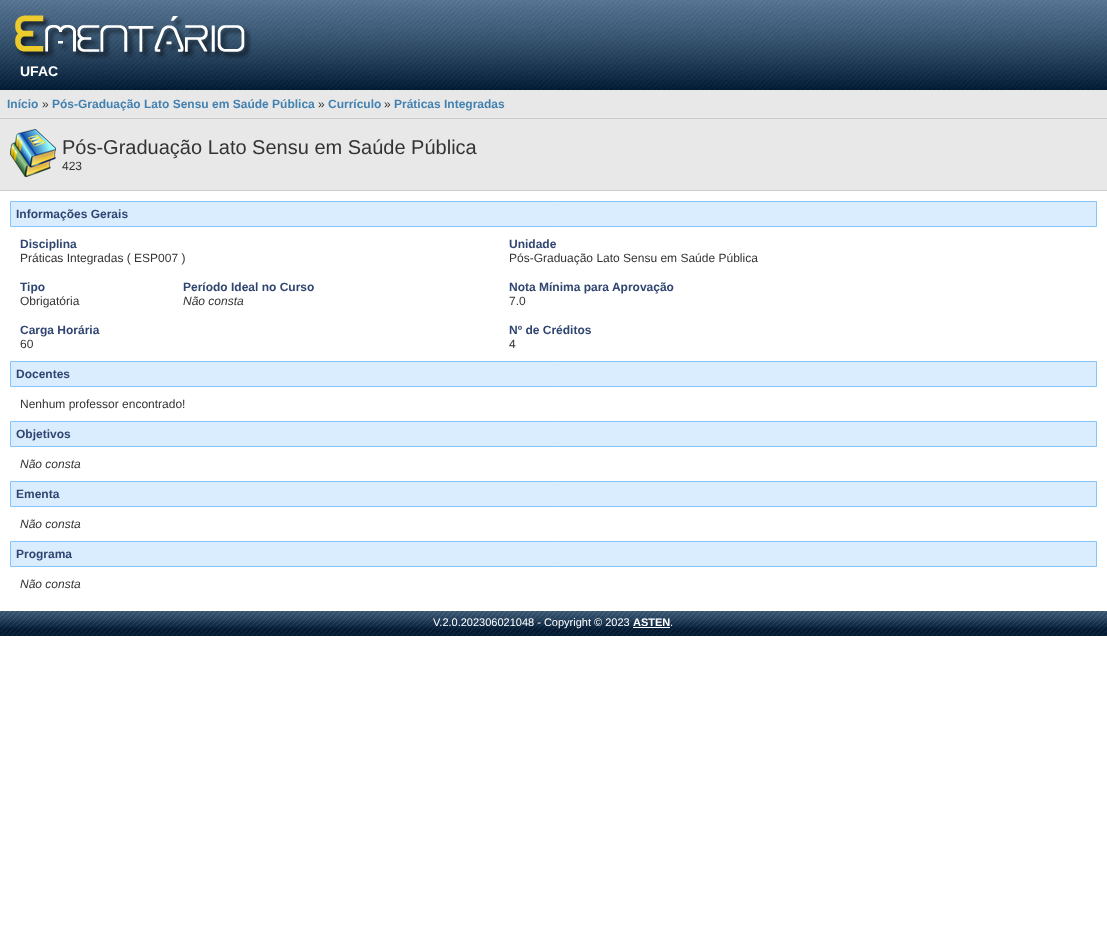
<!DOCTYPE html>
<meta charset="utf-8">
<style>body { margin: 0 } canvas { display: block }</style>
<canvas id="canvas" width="1107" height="939"></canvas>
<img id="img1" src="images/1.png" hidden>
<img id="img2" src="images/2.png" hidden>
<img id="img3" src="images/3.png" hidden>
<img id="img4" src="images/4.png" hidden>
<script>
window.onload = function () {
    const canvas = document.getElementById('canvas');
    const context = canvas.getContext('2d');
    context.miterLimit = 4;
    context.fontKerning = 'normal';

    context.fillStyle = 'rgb(255, 255, 255)';
    context.fillRect(0, 0, 1107, 939);
    context.drawImage(document.getElementById('img1'), 0, 0, 1107, 90);
    context.drawImage(document.getElementById('img2'), 15, 15, 237, 44);
    context.fillStyle = 'rgb(232, 232, 232)';
    context.fillRect(0, 90, 1107, 28);
    context.fillStyle = 'rgb(204, 204, 204)';
    context.fillRect(0, 118, 1107, 1);
    context.fillStyle = 'rgb(232, 232, 232)';
    context.fillRect(0, 119, 1107, 71);
    context.fillStyle = 'rgb(204, 204, 204)';
    context.fillRect(0, 190, 1107, 1);
    context.drawImage(document.getElementById('img3'), 10, 129, 46, 48);
    context.fillStyle = 'rgb(217, 237, 255)';
    context.beginPath();
    context.rect(10.5, 201.5, 1086, 25);
    context.fill();
    context.strokeStyle = 'rgb(132, 197, 255)';
    context.stroke();
    context.beginPath();
    context.rect(10.5, 361.5, 1086, 25);
    context.fill();
    context.stroke();
    context.beginPath();
    context.rect(10.5, 421.5, 1086, 25);
    context.fill();
    context.stroke();
    context.beginPath();
    context.rect(10.5, 481.5, 1086, 25);
    context.fill();
    context.stroke();
    context.beginPath();
    context.rect(10.5, 541.5, 1086, 25);
    context.fill();
    context.stroke();
    context.drawImage(document.getElementById('img4'), 0, 611, 1107, 25);
    context.fillStyle = 'rgb(255, 255, 255)';
    context.fillRect(633, 627, 37, 1);
    context.font = 'bold 14px Liberation Sans';
    context.fillText('UFAC', 20, 76);
    context.font = 'bold 12px Liberation Sans';
    context.fillStyle = 'rgb(67, 130, 176)';
    context.fillText('Início', 7, 108);
    context.font = '12px Liberation Sans';
    context.fillStyle = 'rgb(51, 51, 51)';
    context.fillText('»', 42, 108);
    context.font = 'bold 12px Liberation Sans';
    context.fillStyle = 'rgb(67, 130, 176)';
    context.fillText('Pós-Graduação Lato Sensu em Saúde Pública', 52, 108);
    context.font = '12px Liberation Sans';
    context.fillStyle = 'rgb(51, 51, 51)';
    context.fillText('»', 318, 108);
    context.font = 'bold 12px Liberation Sans';
    context.fillStyle = 'rgb(67, 130, 176)';
    context.fillText('Currículo', 328, 108);
    context.font = '12px Liberation Sans';
    context.fillStyle = 'rgb(51, 51, 51)';
    context.fillText('»', 384, 108);
    context.font = 'bold 12px Liberation Sans';
    context.fillStyle = 'rgb(67, 130, 176)';
    context.fillText('Práticas Integradas', 394, 108);
    context.font = '20px Liberation Sans';
    context.fillStyle = 'rgb(51, 51, 51)';
    context.fillText('Pós-Graduação Lato Sensu em Saúde Pública', 62, 154);
    context.font = '12px Liberation Sans';
    context.fillText('423', 62, 170);
    context.font = 'bold 12px Liberation Sans';
    context.fillStyle = 'rgb(48, 70, 112)';
    context.fillText('Informações Gerais', 16, 218);
    context.fillText('Disciplina', 20, 248);
    context.font = '12px Liberation Sans';
    context.fillStyle = 'rgb(51, 51, 51)';
    context.fillText('Práticas Integradas ( ESP007 )', 20, 262);
    context.font = 'bold 12px Liberation Sans';
    context.fillStyle = 'rgb(48, 70, 112)';
    context.fillText('Unidade', 509, 248);
    context.font = '12px Liberation Sans';
    context.fillStyle = 'rgb(51, 51, 51)';
    context.fillText('Pós-Graduação Lato Sensu em Saúde Pública', 509, 262);
    context.font = 'bold 12px Liberation Sans';
    context.fillStyle = 'rgb(48, 70, 112)';
    context.fillText('Tipo', 20, 291);
    context.font = '12px Liberation Sans';
    context.fillStyle = 'rgb(51, 51, 51)';
    context.fillText('Obrigatória', 20, 305);
    context.font = 'bold 12px Liberation Sans';
    context.fillStyle = 'rgb(48, 70, 112)';
    context.fillText('Período Ideal no Curso', 183, 291);
    context.font = 'italic 12px Liberation Sans';
    context.fillStyle = 'rgb(51, 51, 51)';
    context.fillText('Não consta', 183, 305);
    context.font = 'bold 12px Liberation Sans';
    context.fillStyle = 'rgb(48, 70, 112)';
    context.fillText('Nota Mínima para Aprovação', 509, 291);
    context.font = '12px Liberation Sans';
    context.fillStyle = 'rgb(51, 51, 51)';
    context.fillText('7.0', 509, 305);
    context.font = 'bold 12px Liberation Sans';
    context.fillStyle = 'rgb(48, 70, 112)';
    context.fillText('Carga Horária', 20, 334);
    context.font = '12px Liberation Sans';
    context.fillStyle = 'rgb(51, 51, 51)';
    context.fillText('60', 20, 348);
    context.font = 'bold 12px Liberation Sans';
    context.fillStyle = 'rgb(48, 70, 112)';
    context.fillText('Nº de Créditos', 509, 334);
    context.font = '12px Liberation Sans';
    context.fillStyle = 'rgb(51, 51, 51)';
    context.fillText('4', 509, 348);
    context.font = 'bold 12px Liberation Sans';
    context.fillStyle = 'rgb(48, 70, 112)';
    context.fillText('Docentes', 16, 378);
    context.font = '12px Liberation Sans';
    context.fillStyle = 'rgb(51, 51, 51)';
    context.fillText('Nenhum professor encontrado!', 20, 408);
    context.font = 'bold 12px Liberation Sans';
    context.fillStyle = 'rgb(48, 70, 112)';
    context.fillText('Objetivos', 16, 438);
    context.font = 'italic 12px Liberation Sans';
    context.fillStyle = 'rgb(51, 51, 51)';
    context.fillText('Não consta', 20, 468);
    context.font = 'bold 12px Liberation Sans';
    context.fillStyle = 'rgb(48, 70, 112)';
    context.fillText('Ementa', 16, 498);
    context.font = 'italic 12px Liberation Sans';
    context.fillStyle = 'rgb(51, 51, 51)';
    context.fillText('Não consta', 20, 528);
    context.font = 'bold 12px Liberation Sans';
    context.fillStyle = 'rgb(48, 70, 112)';
    context.fillText('Programa', 16, 558);
    context.font = 'italic 12px Liberation Sans';
    context.fillStyle = 'rgb(51, 51, 51)';
    context.fillText('Não consta', 20, 588);
    context.font = '11px Liberation Sans';
    context.fillStyle = 'rgb(255, 255, 255)';
    context.fillText('V.2.0.202306021048 - Copyright © 2023', 433, 626);
    context.font = 'bold 11px Liberation Sans';
    context.fillText('ASTEN', 633, 626);
    context.font = '11px Liberation Sans';
    context.fillText('.', 670, 626);
};
</script>
